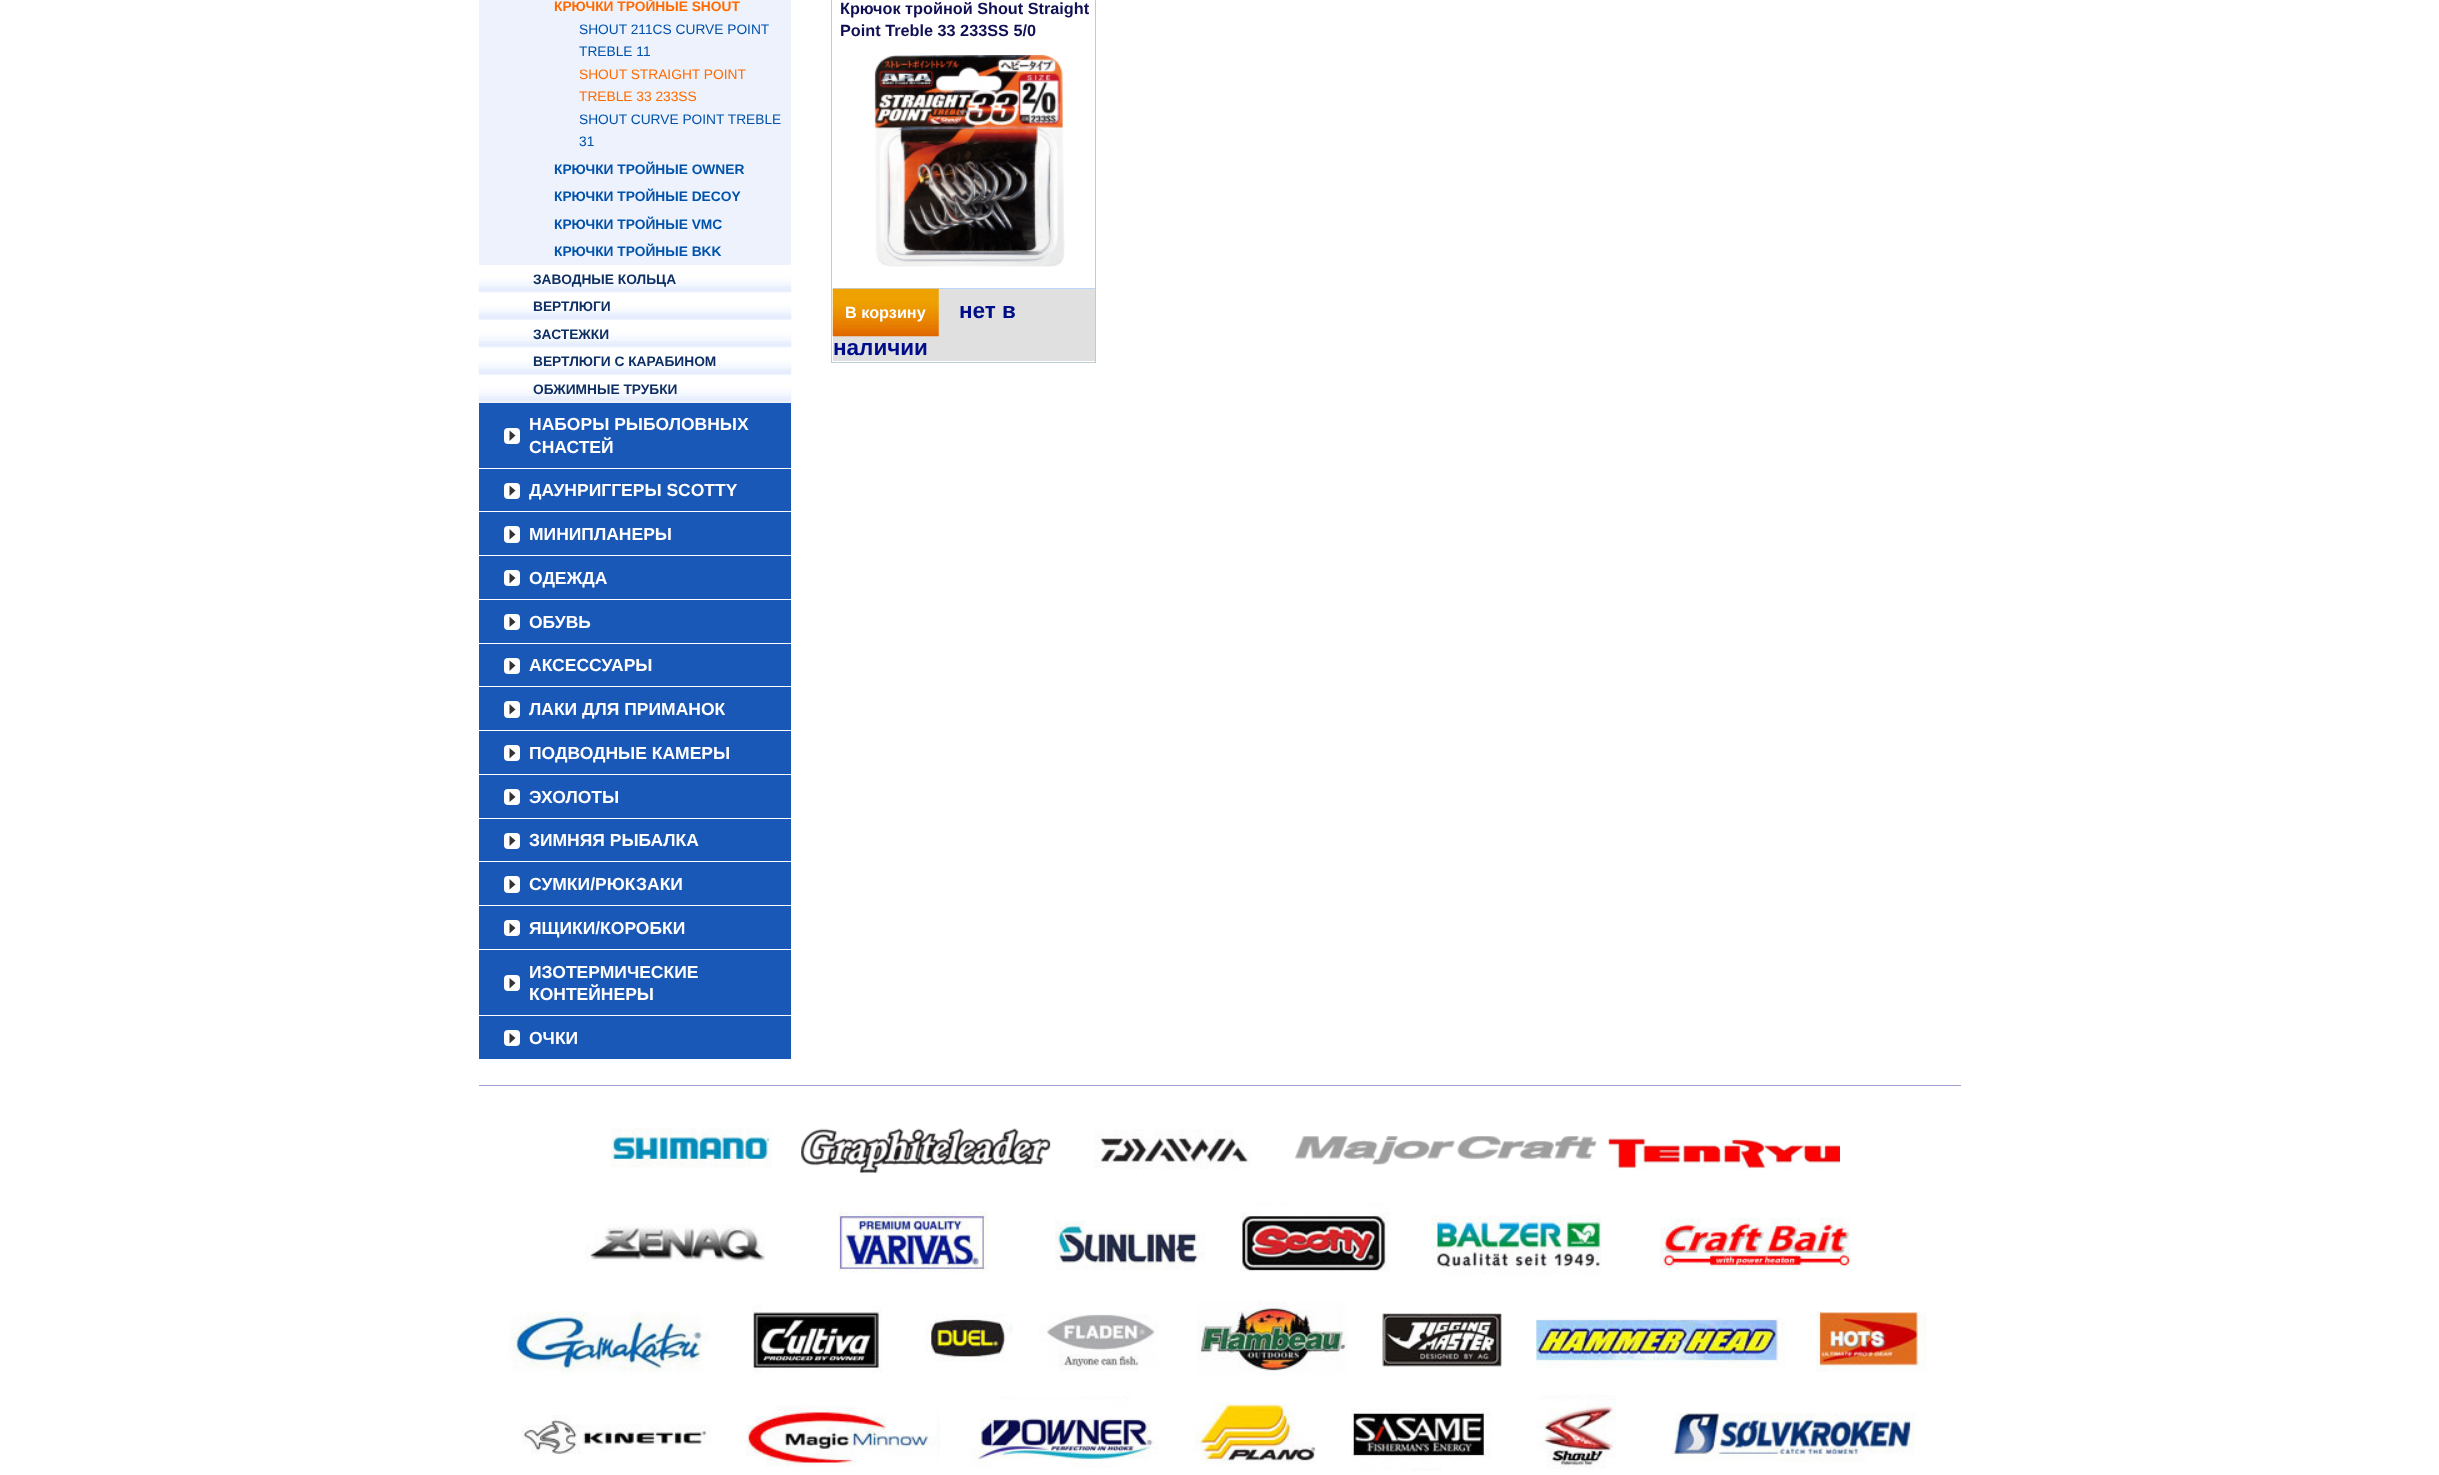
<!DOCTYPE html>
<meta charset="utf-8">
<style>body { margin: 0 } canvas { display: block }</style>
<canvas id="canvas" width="2439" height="1475"></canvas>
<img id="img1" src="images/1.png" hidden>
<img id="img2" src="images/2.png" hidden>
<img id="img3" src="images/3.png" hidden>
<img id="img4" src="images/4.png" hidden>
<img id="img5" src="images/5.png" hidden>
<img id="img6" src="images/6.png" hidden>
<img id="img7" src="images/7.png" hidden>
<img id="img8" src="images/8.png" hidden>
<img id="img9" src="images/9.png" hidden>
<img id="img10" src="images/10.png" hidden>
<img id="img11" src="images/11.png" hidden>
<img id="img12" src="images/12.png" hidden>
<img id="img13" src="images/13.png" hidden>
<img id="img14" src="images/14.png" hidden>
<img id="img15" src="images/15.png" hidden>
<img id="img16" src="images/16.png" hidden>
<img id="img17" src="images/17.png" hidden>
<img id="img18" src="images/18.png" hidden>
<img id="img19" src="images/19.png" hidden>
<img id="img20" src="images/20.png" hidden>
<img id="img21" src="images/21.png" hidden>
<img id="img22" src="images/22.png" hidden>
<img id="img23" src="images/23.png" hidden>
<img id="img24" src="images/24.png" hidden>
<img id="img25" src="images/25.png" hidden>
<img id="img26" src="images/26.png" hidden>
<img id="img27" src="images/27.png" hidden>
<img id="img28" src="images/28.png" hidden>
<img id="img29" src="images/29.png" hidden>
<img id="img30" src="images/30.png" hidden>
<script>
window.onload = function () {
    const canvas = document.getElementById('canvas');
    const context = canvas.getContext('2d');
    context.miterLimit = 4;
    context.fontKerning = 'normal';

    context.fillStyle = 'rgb(255, 255, 255)';
    context.fillRect(0, 0, 2439, 1475);
    context.fillStyle = 'rgb(237, 242, 252)';
    context.fillRect(479, 0, 312, 265);
    context.fillRect(479, 292, 312, 1);
    context.drawImage(document.getElementById('img1'), 478, 265, 314, 27);
    context.drawImage(document.getElementById('img2'), 478, 292, 314, 28);
    context.fillRect(479, 347, 312, 1);
    context.drawImage(document.getElementById('img1'), 478, 320, 314, 27);
    context.drawImage(document.getElementById('img2'), 478, 347, 314, 28);
    context.fillRect(479, 402, 312, 1);
    context.drawImage(document.getElementById('img1'), 478, 375, 314, 27);
    context.fillStyle = 'rgb(26, 88, 184)';
    context.fillRect(479, 403, 312, 65);
    context.fillStyle = 'rgb(255, 255, 255)';
    context.beginPath();
    context.roundRect(504, 428, 16, 16, 4);
    context.fill();
    context.fillStyle = 'rgb(51, 51, 51)';
    context.beginPath();
    context.moveTo(515.5, 435.5);
    context.lineTo(509.5, 441);
    context.lineTo(509.5, 430.5);
    context.closePath();
    context.fill();
    context.fillStyle = 'rgb(26, 88, 184)';
    context.fillRect(479, 469, 312, 86);
    context.fillStyle = 'rgb(255, 255, 255)';
    context.beginPath();
    context.roundRect(504, 483, 16, 16, 4);
    context.fill();
    context.fillStyle = 'rgb(51, 51, 51)';
    context.beginPath();
    context.moveTo(515.5, 490.5);
    context.lineTo(509.5, 496);
    context.lineTo(509.5, 485.5);
    context.closePath();
    context.fill();
    context.fillStyle = 'rgb(255, 255, 255)';
    context.fillRect(479, 511, 312, 1);
    context.beginPath();
    context.roundRect(504, 526, 16, 17, 4);
    context.fill();
    context.fillStyle = 'rgb(51, 51, 51)';
    context.beginPath();
    context.moveTo(515.5, 534.5);
    context.lineTo(509.5, 539.5);
    context.lineTo(509.5, 529);
    context.closePath();
    context.fill();
    context.fillStyle = 'rgb(26, 88, 184)';
    context.fillRect(479, 556, 312, 43);
    context.fillStyle = 'rgb(255, 255, 255)';
    context.beginPath();
    context.roundRect(504, 570, 16, 16, 4);
    context.fill();
    context.fillStyle = 'rgb(51, 51, 51)';
    context.beginPath();
    context.moveTo(515.5, 578);
    context.lineTo(509.5, 583.5);
    context.lineTo(509.5, 573);
    context.closePath();
    context.fill();
    context.fillStyle = 'rgb(26, 88, 184)';
    context.fillRect(479, 600, 312, 43);
    context.fillStyle = 'rgb(255, 255, 255)';
    context.beginPath();
    context.roundRect(504, 614, 16, 16, 4);
    context.fill();
    context.fillStyle = 'rgb(51, 51, 51)';
    context.beginPath();
    context.moveTo(515.5, 622);
    context.lineTo(509.5, 627);
    context.lineTo(509.5, 616.5);
    context.closePath();
    context.fill();
    context.fillStyle = 'rgb(26, 88, 184)';
    context.fillRect(479, 644, 312, 86);
    context.fillStyle = 'rgb(255, 255, 255)';
    context.beginPath();
    context.roundRect(504, 658, 16, 16, 4);
    context.fill();
    context.fillStyle = 'rgb(51, 51, 51)';
    context.beginPath();
    context.moveTo(515.5, 665.5);
    context.lineTo(509.5, 671);
    context.lineTo(509.5, 660.5);
    context.closePath();
    context.fill();
    context.fillStyle = 'rgb(255, 255, 255)';
    context.fillRect(479, 686, 312, 1);
    context.beginPath();
    context.roundRect(504, 701, 16, 17, 4);
    context.fill();
    context.fillStyle = 'rgb(51, 51, 51)';
    context.beginPath();
    context.moveTo(515.5, 709.5);
    context.lineTo(509.5, 714.5);
    context.lineTo(509.5, 704);
    context.closePath();
    context.fill();
    context.fillStyle = 'rgb(26, 88, 184)';
    context.fillRect(479, 731, 312, 43);
    context.fillStyle = 'rgb(255, 255, 255)';
    context.beginPath();
    context.roundRect(504, 745, 16, 16, 4);
    context.fill();
    context.fillStyle = 'rgb(51, 51, 51)';
    context.beginPath();
    context.moveTo(515.5, 753);
    context.lineTo(509.5, 758.5);
    context.lineTo(509.5, 748);
    context.closePath();
    context.fill();
    context.fillStyle = 'rgb(26, 88, 184)';
    context.fillRect(479, 775, 312, 43);
    context.fillStyle = 'rgb(255, 255, 255)';
    context.beginPath();
    context.roundRect(504, 789, 16, 16, 4);
    context.fill();
    context.fillStyle = 'rgb(51, 51, 51)';
    context.beginPath();
    context.moveTo(515.5, 797);
    context.lineTo(509.5, 802);
    context.lineTo(509.5, 791.5);
    context.closePath();
    context.fill();
    context.fillStyle = 'rgb(26, 88, 184)';
    context.fillRect(479, 819, 312, 86);
    context.fillStyle = 'rgb(255, 255, 255)';
    context.beginPath();
    context.roundRect(504, 833, 16, 16, 4);
    context.fill();
    context.fillStyle = 'rgb(51, 51, 51)';
    context.beginPath();
    context.moveTo(515.5, 840.5);
    context.lineTo(509.5, 846);
    context.lineTo(509.5, 835.5);
    context.closePath();
    context.fill();
    context.fillStyle = 'rgb(255, 255, 255)';
    context.fillRect(479, 861, 312, 1);
    context.beginPath();
    context.roundRect(504, 876, 16, 17, 4);
    context.fill();
    context.fillStyle = 'rgb(51, 51, 51)';
    context.beginPath();
    context.moveTo(515.5, 884.5);
    context.lineTo(509.5, 889.5);
    context.lineTo(509.5, 879);
    context.closePath();
    context.fill();
    context.fillStyle = 'rgb(26, 88, 184)';
    context.fillRect(479, 906, 312, 43);
    context.fillStyle = 'rgb(255, 255, 255)';
    context.beginPath();
    context.roundRect(504, 920, 16, 16, 4);
    context.fill();
    context.fillStyle = 'rgb(51, 51, 51)';
    context.beginPath();
    context.moveTo(515.5, 928);
    context.lineTo(509.5, 933.5);
    context.lineTo(509.5, 923);
    context.closePath();
    context.fill();
    context.fillStyle = 'rgb(26, 88, 184)';
    context.fillRect(479, 950, 312, 65);
    context.fillStyle = 'rgb(255, 255, 255)';
    context.beginPath();
    context.roundRect(504, 975, 16, 16, 4);
    context.fill();
    context.fillStyle = 'rgb(51, 51, 51)';
    context.beginPath();
    context.moveTo(515.5, 983);
    context.lineTo(509.5, 988.5);
    context.lineTo(509.5, 978);
    context.closePath();
    context.fill();
    context.fillStyle = 'rgb(26, 88, 184)';
    context.fillRect(479, 1016, 312, 43);
    context.fillStyle = 'rgb(255, 255, 255)';
    context.beginPath();
    context.roundRect(504, 1030, 16, 16, 4);
    context.fill();
    context.fillStyle = 'rgb(51, 51, 51)';
    context.beginPath();
    context.moveTo(515.5, 1038);
    context.lineTo(509.5, 1043.5);
    context.lineTo(509.5, 1033);
    context.closePath();
    context.fill();
    context.strokeStyle = 'rgb(189, 204, 212)';
    context.strokeRect(831.5, -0.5, 264, 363);
    context.drawImage(document.getElementById('img3'), 874, 55, 191, 212);
    context.fillStyle = 'rgb(224, 224, 224)';
    context.fillRect(833, 289, 262, 72);
    context.fillStyle = 'rgb(187, 214, 251)';
    context.fillRect(833, 288, 262, 1);
    context.drawImage(document.getElementById('img4'), 832, 288, 107, 49);
    context.fillStyle = 'rgb(159, 161, 211)';
    context.fillRect(479, 1085, 1482, 1);
    context.drawImage(document.getElementById('img5'), 611, 1127, 161, 41);
    context.drawImage(document.getElementById('img6'), 801, 1128, 250, 45);
    context.drawImage(document.getElementById('img7'), 1094, 1129, 157, 40);
    context.drawImage(document.getElementById('img8'), 1295, 1136, 302, 29);
    context.drawImage(document.getElementById('img9'), 1608, 1138, 232, 32);
    context.drawImage(document.getElementById('img10'), 585, 1224, 180, 38);
    context.drawImage(document.getElementById('img11'), 838, 1211, 151, 63);
    context.drawImage(document.getElementById('img12'), 1055, 1220, 150, 50);
    context.drawImage(document.getElementById('img13'), 1240, 1203, 150, 69);
    context.drawImage(document.getElementById('img14'), 1431, 1215, 171, 60);
    context.drawImage(document.getElementById('img15'), 1660, 1217, 191, 55);
    context.drawImage(document.getElementById('img16'), 508, 1311, 202, 64);
    context.drawImage(document.getElementById('img17'), 752, 1305, 130, 68);
    context.drawImage(document.getElementById('img18'), 925, 1314, 88, 48);
    context.drawImage(document.getElementById('img19'), 1039, 1314, 120, 57);
    context.drawImage(document.getElementById('img20'), 1197, 1300, 151, 75);
    context.drawImage(document.getElementById('img21'), 1382, 1313, 120, 54);
    context.drawImage(document.getElementById('img22'), 1536, 1317, 250, 52);
    context.drawImage(document.getElementById('img23'), 1816, 1311, 111, 61);
    context.drawImage(document.getElementById('img24'), 521, 1415, 190, 39);
    context.drawImage(document.getElementById('img25'), 746, 1405, 194, 62);
    context.drawImage(document.getElementById('img26'), 970, 1396, 188, 72);
    context.drawImage(document.getElementById('img27'), 1193, 1402, 123, 63);
    context.drawImage(document.getElementById('img28'), 1351, 1408, 140, 63);
    context.drawImage(document.getElementById('img29'), 1537, 1395, 79, 74);
    context.drawImage(document.getElementById('img30'), 1671, 1412, 244, 50);
    context.font = 'bold 13.75px Liberation Sans';
    context.fillStyle = 'rgb(255, 107, 0)';
    context.fillText('КРЮЧКИ ТРОЙНЫЕ SHOUT', 554, 11);
    context.font = '13.75px Liberation Sans';
    context.fillStyle = 'rgb(0, 82, 171)';
    context.fillText('SHOUT 211CS CURVE POINT', 579, 34);
    context.fillText('TREBLE 11', 579, 56);
    context.fillStyle = 'rgb(255, 107, 0)';
    context.fillText('SHOUT STRAIGHT POINT', 579, 79);
    context.fillText('TREBLE 33 233SS', 579, 101);
    context.fillStyle = 'rgb(0, 82, 171)';
    context.fillText('SHOUT CURVE POINT TREBLE', 579, 124);
    context.fillText('31', 579, 146);
    context.font = 'bold 13.75px Liberation Sans';
    context.fillText('КРЮЧКИ ТРОЙНЫЕ OWNER', 554, 174);
    context.fillText('КРЮЧКИ ТРОЙНЫЕ DECOY', 554, 201);
    context.fillText('КРЮЧКИ ТРОЙНЫЕ VMC', 554, 229);
    context.fillText('КРЮЧКИ ТРОЙНЫЕ BKK', 554, 256);
    context.fillStyle = 'rgb(14, 47, 100)';
    context.fillText('ЗАВОДНЫЕ КОЛЬЦА', 533, 284);
    context.fillText('ВЕРТЛЮГИ', 533, 311);
    context.fillText('ЗАСТЕЖКИ', 533, 339);
    context.fillText('ВЕРТЛЮГИ С КАРАБИНОМ', 533, 366);
    context.fillText('ОБЖИМНЫЕ ТРУБКИ', 533, 394);
    context.font = 'bold 17.5px Liberation Sans';
    context.fillStyle = 'rgb(255, 255, 255)';
    context.fillText('НАБОРЫ РЫБОЛОВНЫХ', 529, 430);
    context.fillText('СНАСТЕЙ', 529, 453);
    context.fillText('ДАУНРИГГЕРЫ SCOTTY', 529, 496);
    context.fillText('МИНИПЛАНЕРЫ', 529, 540);
    context.fillText('ОДЕЖДА', 529, 584);
    context.fillText('ОБУВЬ', 529, 628);
    context.fillText('АКСЕССУАРЫ', 529, 671);
    context.fillText('ЛАКИ ДЛЯ ПРИМАНОК', 529, 715);
    context.fillText('ПОДВОДНЫЕ КАМЕРЫ', 529, 759);
    context.fillText('ЭХОЛОТЫ', 529, 803);
    context.fillText('ЗИМНЯЯ РЫБАЛКА', 529, 846);
    context.fillText('СУМКИ/РЮКЗАКИ', 529, 890);
    context.fillText('ЯЩИКИ/КОРОБКИ', 529, 934);
    context.fillText('ИЗОТЕРМИЧЕСКИЕ', 529, 978);
    context.fillText('КОНТЕЙНЕРЫ', 529, 1000);
    context.fillText('ОЧКИ', 529, 1044);
    context.font = 'bold 16.25px Liberation Sans';
    context.fillStyle = 'rgb(16, 16, 85)';
    context.fillText('Крючок тройной Shout Straight', 840, 14);
    context.fillText('Point Treble 33 233SS 5/0', 840, 36);
    context.fillStyle = 'rgb(255, 255, 255)';
    context.fillText('В корзину', 845, 318);
    context.font = 'bold 22.5px Liberation Sans';
    context.fillStyle = 'rgb(0, 13, 136)';
    context.fillText('нет в', 959, 318);
    context.fillText('наличии', 833, 355);
};
</script>
